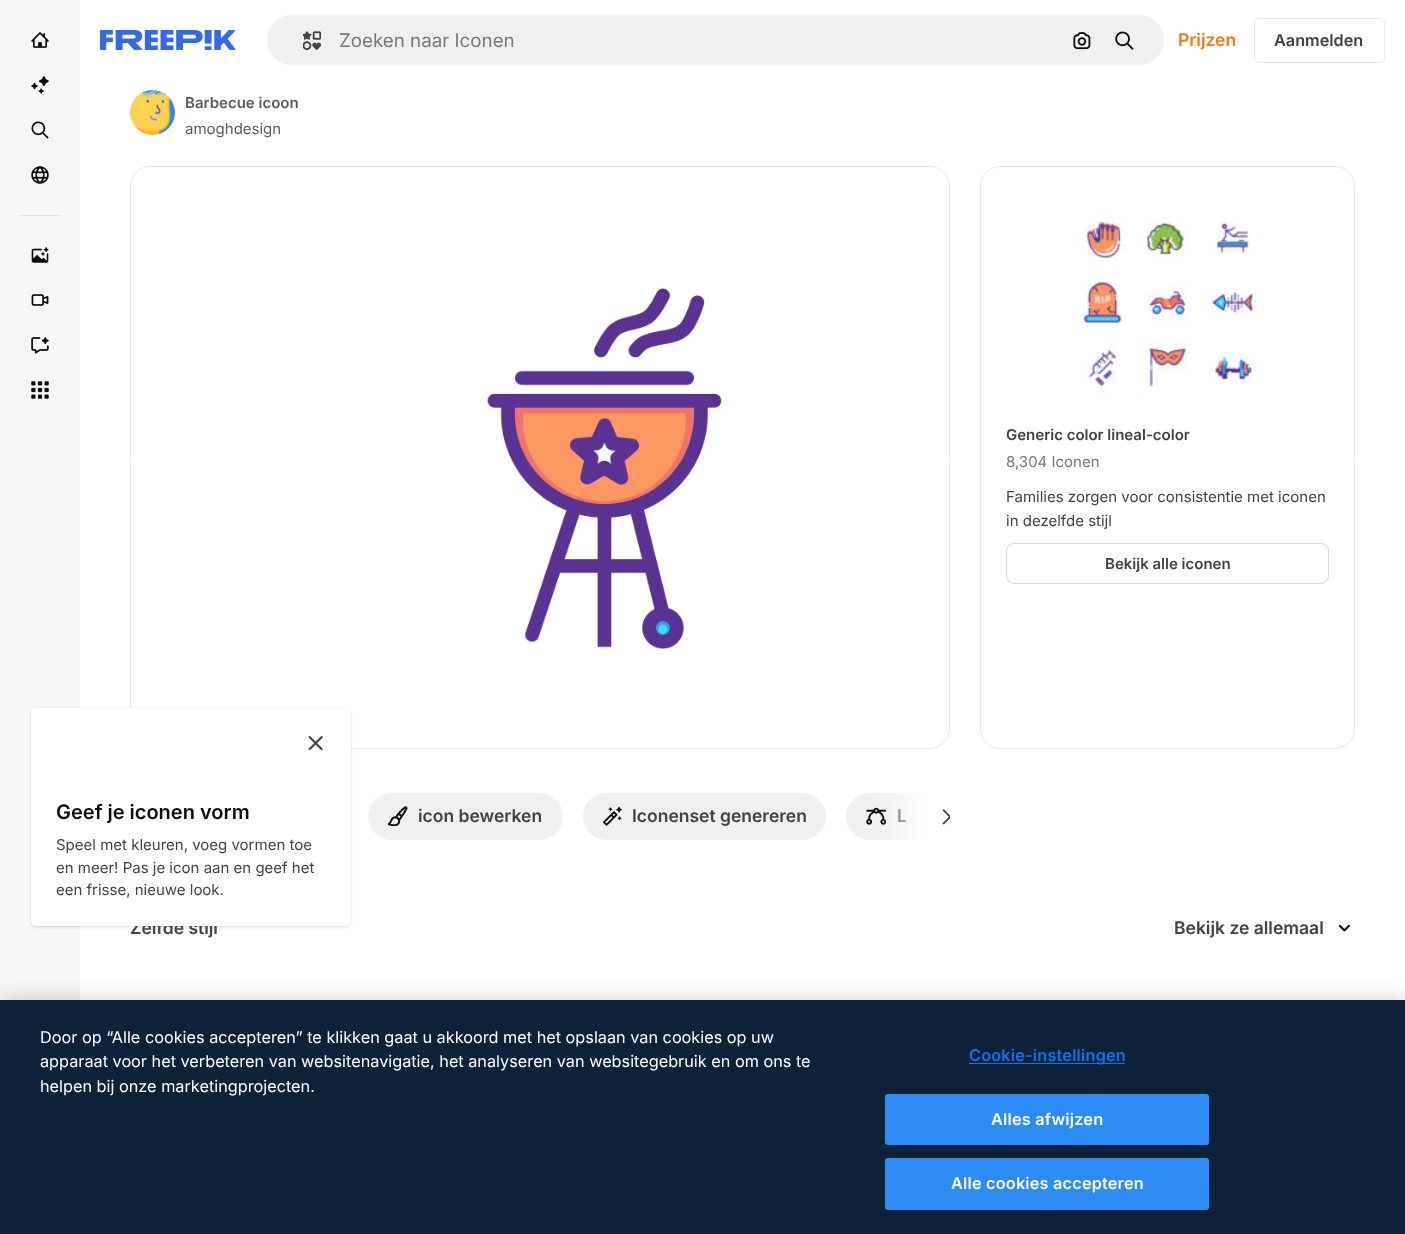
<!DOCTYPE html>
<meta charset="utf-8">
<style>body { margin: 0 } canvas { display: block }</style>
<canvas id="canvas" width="1405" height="1234"></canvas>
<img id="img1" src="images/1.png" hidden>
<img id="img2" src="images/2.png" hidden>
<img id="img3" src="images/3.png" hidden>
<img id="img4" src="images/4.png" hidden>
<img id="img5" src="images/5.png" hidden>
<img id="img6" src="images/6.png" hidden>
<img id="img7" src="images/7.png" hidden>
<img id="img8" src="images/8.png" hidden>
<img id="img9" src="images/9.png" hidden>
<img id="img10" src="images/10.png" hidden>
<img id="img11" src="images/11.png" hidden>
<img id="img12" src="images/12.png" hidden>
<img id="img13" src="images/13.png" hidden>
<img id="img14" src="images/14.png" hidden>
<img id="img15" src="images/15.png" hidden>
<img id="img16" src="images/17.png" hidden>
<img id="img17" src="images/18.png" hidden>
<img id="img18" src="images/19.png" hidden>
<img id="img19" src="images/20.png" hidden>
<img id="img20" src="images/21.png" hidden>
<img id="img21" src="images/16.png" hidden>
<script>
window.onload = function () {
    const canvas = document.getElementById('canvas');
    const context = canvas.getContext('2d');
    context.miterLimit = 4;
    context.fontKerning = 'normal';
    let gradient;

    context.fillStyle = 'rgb(255, 255, 255)';
    context.fillRect(0, 0, 1405, 1234);
    context.fillStyle = 'rgb(247, 247, 247)';
    context.fillRect(0, 0, 80, 1000);
    context.drawImage(document.getElementById('img1'), 31, 32, 18, 16);
    context.drawImage(document.getElementById('img2'), 31, 76, 18, 18);
    context.drawImage(document.getElementById('img3'), 31, 121, 18, 18);
    context.drawImage(document.getElementById('img4'), 31, 166, 18, 18);
    context.fillStyle = 'rgb(224, 224, 224)';
    context.fillRect(20, 215, 40, 1);
    context.drawImage(document.getElementById('img5'), 31, 247, 18, 16);
    context.drawImage(document.getElementById('img6'), 31, 294, 18, 12);
    context.drawImage(document.getElementById('img7'), 31, 337, 18, 17);
    context.drawImage(document.getElementById('img8'), 31, 381, 18, 18);
    context.drawImage(document.getElementById('img9'), 100, 30, 136, 20);
    context.fillStyle = 'rgb(240, 240, 240)';
    context.beginPath();
    context.roundRect(266.5, 14.5, 898, 51, 25.5);
    context.fill();
    context.strokeStyle = 'rgb(255, 255, 255)';
    context.stroke();
    context.drawImage(document.getElementById('img10'), 303, 31, 18, 19);
    context.drawImage(document.getElementById('img11'), 1073, 32, 18, 18);
    context.drawImage(document.getElementById('img12'), 1115, 31, 19, 19);
    context.beginPath();
    context.roundRect(1254.5, 18.5, 130, 44, 4.5);
    context.strokeStyle = 'rgb(231, 231, 231)';
    context.stroke();
    context.drawImage(document.getElementById('img13'), 130, 90, 45, 45);
    context.beginPath();
    context.roundRect(130.5, 166.5, 819, 582, 19.5);
    context.stroke();
    context.drawImage(document.getElementById('img14'), 487, 288, 235, 362);
    context.beginPath();
    context.roundRect(980.5, 166.5, 374, 582, 19.5);
    context.stroke();
    context.drawImage(document.getElementById('img15'), 1077, 221, 181, 172);
    context.beginPath();
    context.roundRect(1006.5, 543.5, 322, 40, 7.5);
    context.strokeStyle = 'rgb(216, 216, 216)';
    context.stroke();
    context.fillStyle = 'rgba(18, 18, 18, 0.08)';
    context.filter = 'blur(1px)';
    context.beginPath();
    context.roundRect(31, 709, 320, 219, 5);
    context.fill();
    context.filter = 'none';
    context.filter = 'blur(1px)';
    context.beginPath();
    context.roundRect(31, 708, 320, 218, 5);
    context.fill();
    context.filter = 'none';
    context.fillStyle = 'rgb(240, 240, 240)';
    context.beginPath();
    context.roundRect(368, 793, 195, 47, 23.5);
    context.fill();
    context.drawImage(document.getElementById('img16'), 388, 806, 20, 20);
    context.beginPath();
    context.roundRect(583, 793, 243, 47, 23.5);
    context.fill();
    context.drawImage(document.getElementById('img17'), 603, 806, 19, 20);
    context.beginPath();
    context.roundRect(846, 793, 104, 47, [23.5, 0, 0, 23.5]);
    context.fill();
    context.drawImage(document.getElementById('img18'), 866, 807, 20, 18);
    context.fillStyle = 'rgb(255, 255, 255)';
    context.fillRect(925, 793, 25, 47);
    context.drawImage(document.getElementById('img19'), 942, 809, 8, 16);
    context.drawImage(document.getElementById('img20'), 1338, 924, 12, 8);
    context.fillStyle = 'rgba(0, 0, 0, 0.2)';
    context.filter = 'blur(11px)';
    context.beginPath();
    context.rect(0, 1000, 1405, 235);
    context.fill();
    context.filter = 'none';
    context.fillStyle = 'rgb(11, 34, 57)';
    context.fillRect(0, 1000, 1405, 234);
    context.fillStyle = 'rgb(18, 115, 235)';
    context.fillRect(969, 1063, 156, 1);
    context.fillStyle = 'rgb(44, 140, 244)';
    context.beginPath();
    context.roundRect(885.5, 1094.5, 323, 50, 2);
    context.fill();
    context.strokeStyle = 'rgb(44, 140, 244)';
    context.stroke();
    context.beginPath();
    context.roundRect(885.5, 1158.5, 323, 51, 2);
    context.fill();
    context.stroke();
    context.font = '18.75px Inter';
    context.fillStyle = 'rgb(120, 120, 120)';
    context.fillText('Zoeken naar Iconen', 339, 47);
    context.font = '600 17.5px Inter';
    context.fillStyle = 'rgb(234, 126, 17)';
    context.fillText('Prijzen', 1178, 46);
    context.font = '600 16.25px Inter';
    context.fillStyle = 'rgb(66, 66, 66)';
    context.fillText('Aanmelden', 1274, 46);
    context.font = '600 15px Inter';
    context.fillStyle = 'rgb(92, 92, 92)';
    context.fillText('Barbecue icoon', 185, 108);
    context.font = '15px Inter';
    context.fillText('amoghdesign', 185, 134);
    context.font = '600 15px Inter';
    context.fillStyle = 'rgb(66, 66, 66)';
    context.fillText('Generic color lineal-color', 1006, 440);
    context.font = '15px Inter';
    context.fillStyle = 'rgb(120, 120, 120)';
    context.fillText('8,304 Iconen', 1006, 467);
    context.fillStyle = 'rgb(66, 66, 66)';
    context.fillText('Families zorgen voor consistentie met iconen', 1006, 502);
    context.fillText('in dezelfde stijl', 1006, 526);
    context.font = '600 15px Inter';
    context.fillText('Bekijk alle iconen', 1105, 569);
    context.font = '600 17.5px Inter';
    context.fillText('icon bewerken', 418, 822);
    context.fillText('Iconenset genereren', 632, 822);
    context.fillText('L', 897, 822);
    gradient = context.createLinearGradient(925, 816, 881, 816);
    gradient.addColorStop(0, 'rgb(255, 255, 255)');
    gradient.addColorStop(1, 'rgba(255, 255, 255, 0)');
    context.fillStyle = gradient;
    context.fillRect(882, 793, 43, 47);
    context.fillStyle = 'rgb(66, 66, 66)';
    context.fillText('Zelfde stijl', 130, 934);
    context.fillStyle = 'rgb(255, 255, 255)';
    context.beginPath();
    context.roundRect(31, 708, 320, 218, 5);
    context.fill();
    context.drawImage(document.getElementById('img21'), 308, 736, 15, 15);
    context.font = '15px Inter';
    context.fillStyle = 'rgb(66, 66, 66)';
    context.fillText('een frisse, nieuwe look.', 56, 895);
    context.fillText('en meer! Pas je icon aan en geef het', 56, 873);
    context.fillText('Speel met kleuren, voeg vormen toe', 56, 850);
    context.font = '600 20px Inter';
    context.fillStyle = 'rgb(13, 13, 13)';
    context.fillText('Geef je iconen vorm', 56, 819);
    context.font = '600 17.5px Inter';
    context.fillStyle = 'rgb(66, 66, 66)';
    context.fillText('Bekijk ze allemaal', 1174, 934);
    context.font = '16.25px Inter';
    context.fillStyle = 'rgb(255, 255, 255)';
    context.fillText('Door op “Alle cookies accepteren” te klikken gaat u akkoord met het opslaan van cookies op uw', 40, 1043);
    context.fillText('apparaat voor het verbeteren van websitenavigatie, het analyseren van websitegebruik en om ons te', 40, 1067);
    context.fillText('helpen bij onze marketingprojecten.', 40, 1092);
    context.letterSpacing = '0.2px';
    context.font = '600 16.25px Inter';
    context.fillStyle = 'rgb(18, 115, 235)';
    context.fillText('Cookie-instellingen', 969, 1061);
    context.fillStyle = 'rgb(255, 255, 255)';
    context.fillText('Alles afwijzen', 991, 1125);
    context.fillText('Alle cookies accepteren', 951, 1189);
};
</script>
